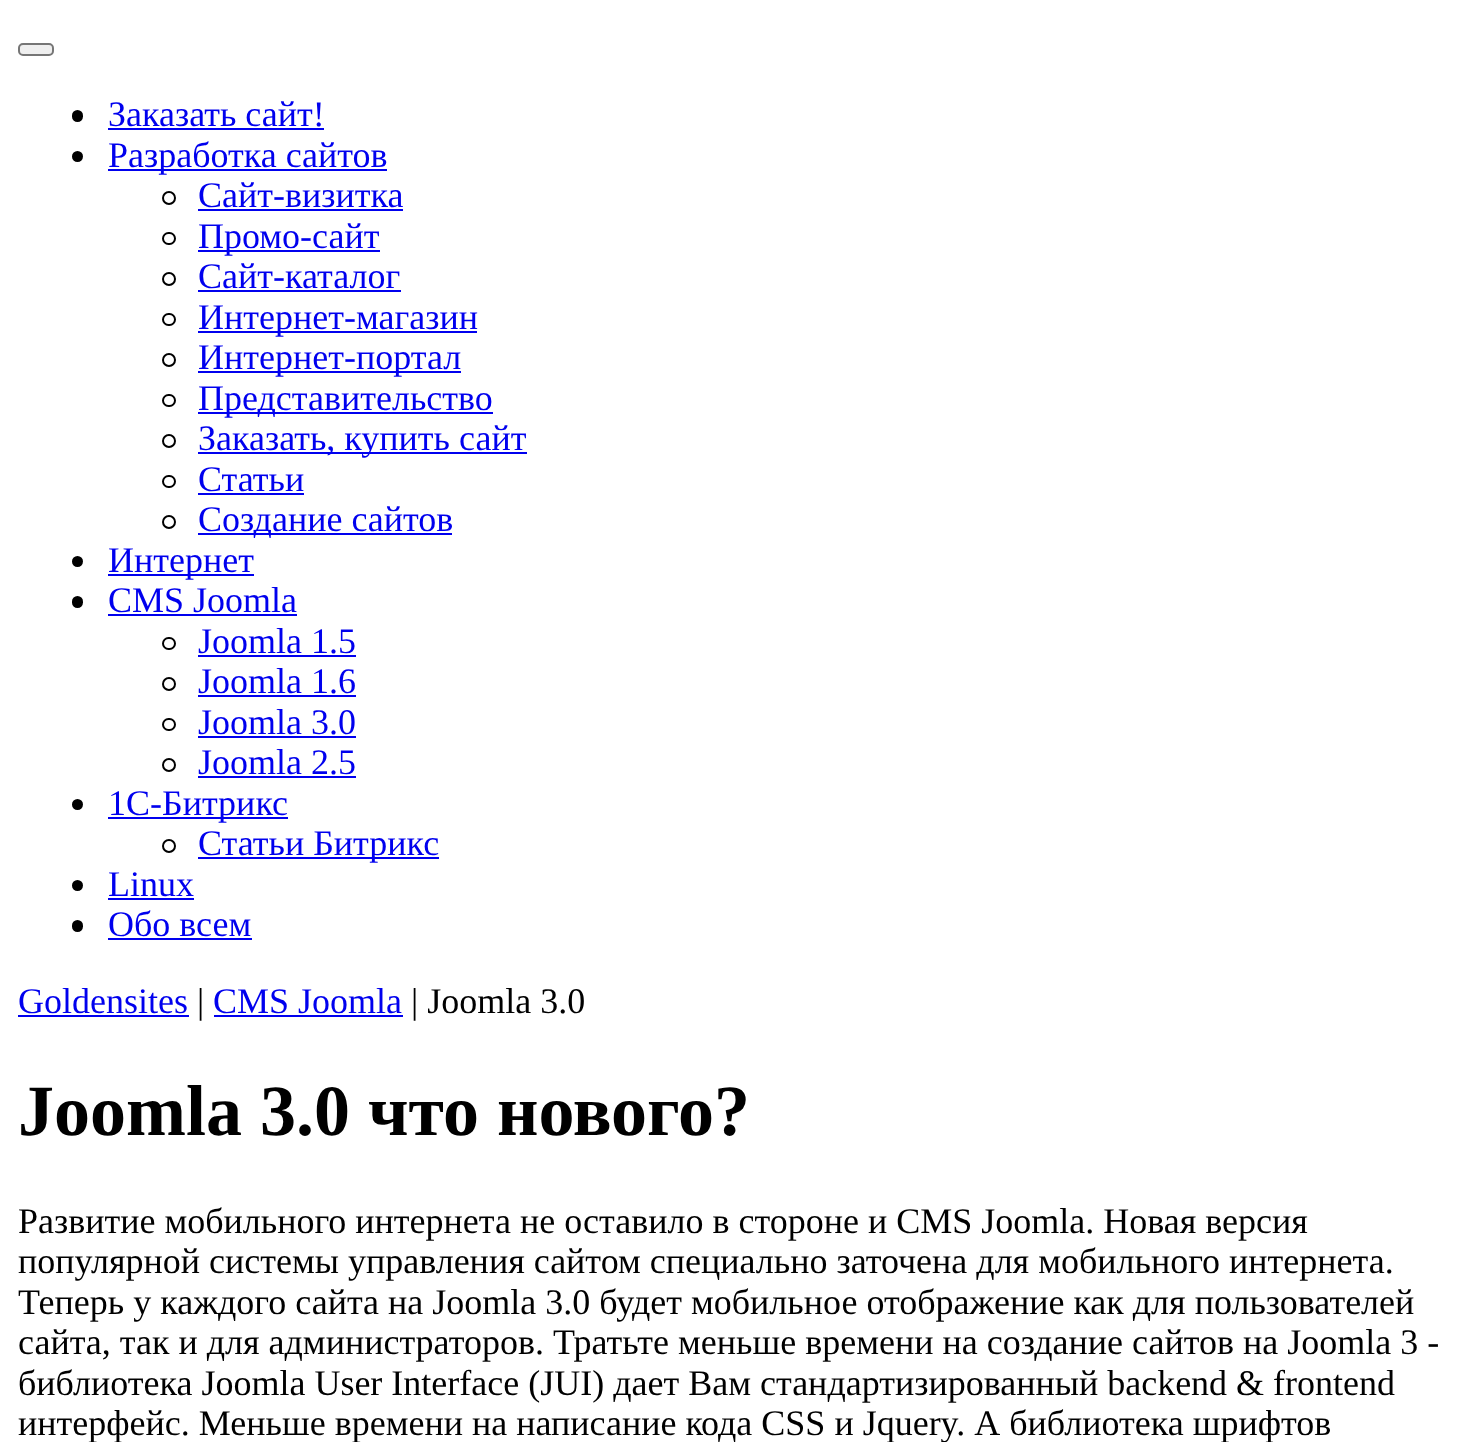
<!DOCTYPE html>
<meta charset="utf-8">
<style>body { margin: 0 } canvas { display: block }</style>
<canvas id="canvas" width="1469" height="1442"></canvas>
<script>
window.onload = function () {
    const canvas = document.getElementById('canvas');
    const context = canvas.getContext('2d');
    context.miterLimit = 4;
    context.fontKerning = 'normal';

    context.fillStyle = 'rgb(255, 255, 255)';
    context.fillRect(0, 0, 1469, 1442);
    context.fillStyle = 'rgb(239, 239, 239)';
    context.beginPath();
    context.roundRect(19, 44, 34, 11, 4);
    context.fill();
    context.strokeStyle = 'rgb(118, 118, 118)';
    context.lineWidth = 2;
    context.stroke();
    context.fillStyle = 'rgb(0, 0, 0)';
    context.beginPath();
    context.roundRect(72, 110, 11, 12, 5.5);
    context.fill();
    context.fillStyle = 'rgb(0, 0, 238)';
    context.fillRect(108, 128, 216, 2);
    context.fillStyle = 'rgb(0, 0, 0)';
    context.beginPath();
    context.arc(77.5, 156.5, 5.5, 0, 2 * Math.PI);
    context.fill();
    context.fillStyle = 'rgb(0, 0, 238)';
    context.fillRect(108, 169, 279, 2);
    context.beginPath();
    context.arc(169, 198, 6, 0, 2 * Math.PI);
    context.strokeStyle = 'rgb(0, 0, 0)';
    context.stroke();
    context.fillRect(198, 209, 205, 2);
    context.beginPath();
    context.roundRect(163, 233, 12, 11, 5.5);
    context.stroke();
    context.fillRect(198, 250, 182, 2);
    context.beginPath();
    context.arc(169, 279, 6, 0, 2 * Math.PI);
    context.stroke();
    context.fillRect(198, 290, 203, 2);
    context.beginPath();
    context.roundRect(163, 314, 12, 11, 5.5);
    context.stroke();
    context.fillRect(198, 331, 279, 2);
    context.beginPath();
    context.arc(169, 360, 6, 0, 2 * Math.PI);
    context.stroke();
    context.fillRect(198, 371, 263, 2);
    context.beginPath();
    context.roundRect(163, 395, 12, 11, 5.5);
    context.stroke();
    context.fillRect(198, 412, 295, 2);
    context.beginPath();
    context.arc(169, 441, 6, 0, 2 * Math.PI);
    context.stroke();
    context.fillRect(198, 452, 329, 2);
    context.beginPath();
    context.roundRect(163, 476, 12, 11, 5.5);
    context.stroke();
    context.fillRect(198, 493, 106, 2);
    context.beginPath();
    context.arc(169, 522, 6, 0, 2 * Math.PI);
    context.stroke();
    context.fillRect(198, 533, 254, 2);
    context.fillStyle = 'rgb(0, 0, 0)';
    context.beginPath();
    context.arc(77.5, 561.5, 5.5, 0, 2 * Math.PI);
    context.fill();
    context.fillStyle = 'rgb(0, 0, 238)';
    context.fillRect(108, 574, 146, 2);
    context.fillStyle = 'rgb(0, 0, 0)';
    context.beginPath();
    context.roundRect(72, 596, 11, 12, 5.5);
    context.fill();
    context.fillStyle = 'rgb(0, 0, 238)';
    context.fillRect(108, 614, 189, 2);
    context.beginPath();
    context.roundRect(163, 638, 12, 11, 5.5);
    context.stroke();
    context.fillRect(198, 655, 158, 2);
    context.beginPath();
    context.arc(169, 684, 6, 0, 2 * Math.PI);
    context.stroke();
    context.fillRect(198, 695, 158, 2);
    context.beginPath();
    context.roundRect(163, 719, 12, 11, 5.5);
    context.stroke();
    context.fillRect(198, 736, 158, 2);
    context.beginPath();
    context.arc(169, 765, 6, 0, 2 * Math.PI);
    context.stroke();
    context.fillRect(198, 776, 158, 2);
    context.fillStyle = 'rgb(0, 0, 0)';
    context.beginPath();
    context.arc(77.5, 804.5, 5.5, 0, 2 * Math.PI);
    context.fill();
    context.fillStyle = 'rgb(0, 0, 238)';
    context.fillRect(108, 817, 180, 2);
    context.beginPath();
    context.arc(169, 846, 6, 0, 2 * Math.PI);
    context.stroke();
    context.fillRect(198, 857, 241, 2);
    context.fillStyle = 'rgb(0, 0, 0)';
    context.beginPath();
    context.arc(77.5, 885.5, 5.5, 0, 2 * Math.PI);
    context.fill();
    context.fillStyle = 'rgb(0, 0, 238)';
    context.fillRect(108, 898, 86, 2);
    context.fillStyle = 'rgb(0, 0, 0)';
    context.beginPath();
    context.roundRect(72, 920, 11, 12, 5.5);
    context.fill();
    context.fillStyle = 'rgb(0, 0, 238)';
    context.fillRect(108, 938, 144, 2);
    context.fillRect(18, 1015, 171, 2);
    context.fillRect(214, 1015, 189, 2);
    context.font = '36px Liberation Serif';
    context.fillText('Заказать сайт!', 108, 126);
    context.fillText('Разработка сайтов', 108, 167);
    context.fillText('Сайт-визитка', 198, 207);
    context.fillText('Промо-сайт', 198, 248);
    context.fillText('Сайт-каталог', 198, 288);
    context.fillText('Интернет-магазин', 198, 329);
    context.fillText('Интернет-портал', 198, 369);
    context.fillText('Представительство', 198, 410);
    context.fillText('Заказать, купить сайт', 198, 450);
    context.fillText('Статьи', 198, 491);
    context.fillText('Создание сайтов', 198, 531);
    context.fillText('Интернет', 108, 572);
    context.fillText('CMS Joomla', 108, 612);
    context.fillText('Joomla 1.5', 198, 653);
    context.fillText('Joomla 1.6', 198, 693);
    context.fillText('Joomla 3.0', 198, 734);
    context.fillText('Joomla 2.5', 198, 774);
    context.fillText('1С-Битрикс', 108, 815);
    context.fillText('Статьи Битрикс', 198, 855);
    context.fillText('Linux', 108, 896);
    context.fillText('Обо всем', 108, 936);
    context.fillText('Goldensites', 18, 1013);
    context.fillStyle = 'rgb(0, 0, 0)';
    context.fillText('|', 197, 1013);
    context.fillStyle = 'rgb(0, 0, 238)';
    context.fillText('CMS Joomla', 213, 1013);
    context.fillStyle = 'rgb(0, 0, 0)';
    context.fillText('| Joomla 3.0', 411, 1013);
    context.font = 'bold 72px Liberation Serif';
    context.fillText('Joomla 3.0 что нового?', 18, 1135);
    context.font = '36px Liberation Serif';
    context.fillText('Развитие мобильного интернета не оставило в стороне и CMS Joomla. Новая версия', 18, 1233);
    context.fillText('популярной системы управления сайтом специально заточена для мобильного интернета.', 18, 1273);
    context.fillText('Теперь у каждого сайта на Joomla 3.0 будет мобильное отображение как для пользователей', 18, 1314);
    context.fillText('сайта, так и для администраторов. Тратьте меньше времени на создание сайтов на Joomla 3 -', 18, 1354);
    context.fillText('библиотека Joomla User Interface (JUI) дает Вам стандартизированный backend & frontend', 18, 1395);
    context.fillText('интерфейс. Меньше времени на написание кода CSS и Jquery. А библиотека шрифтов', 18, 1435);
};
</script>
